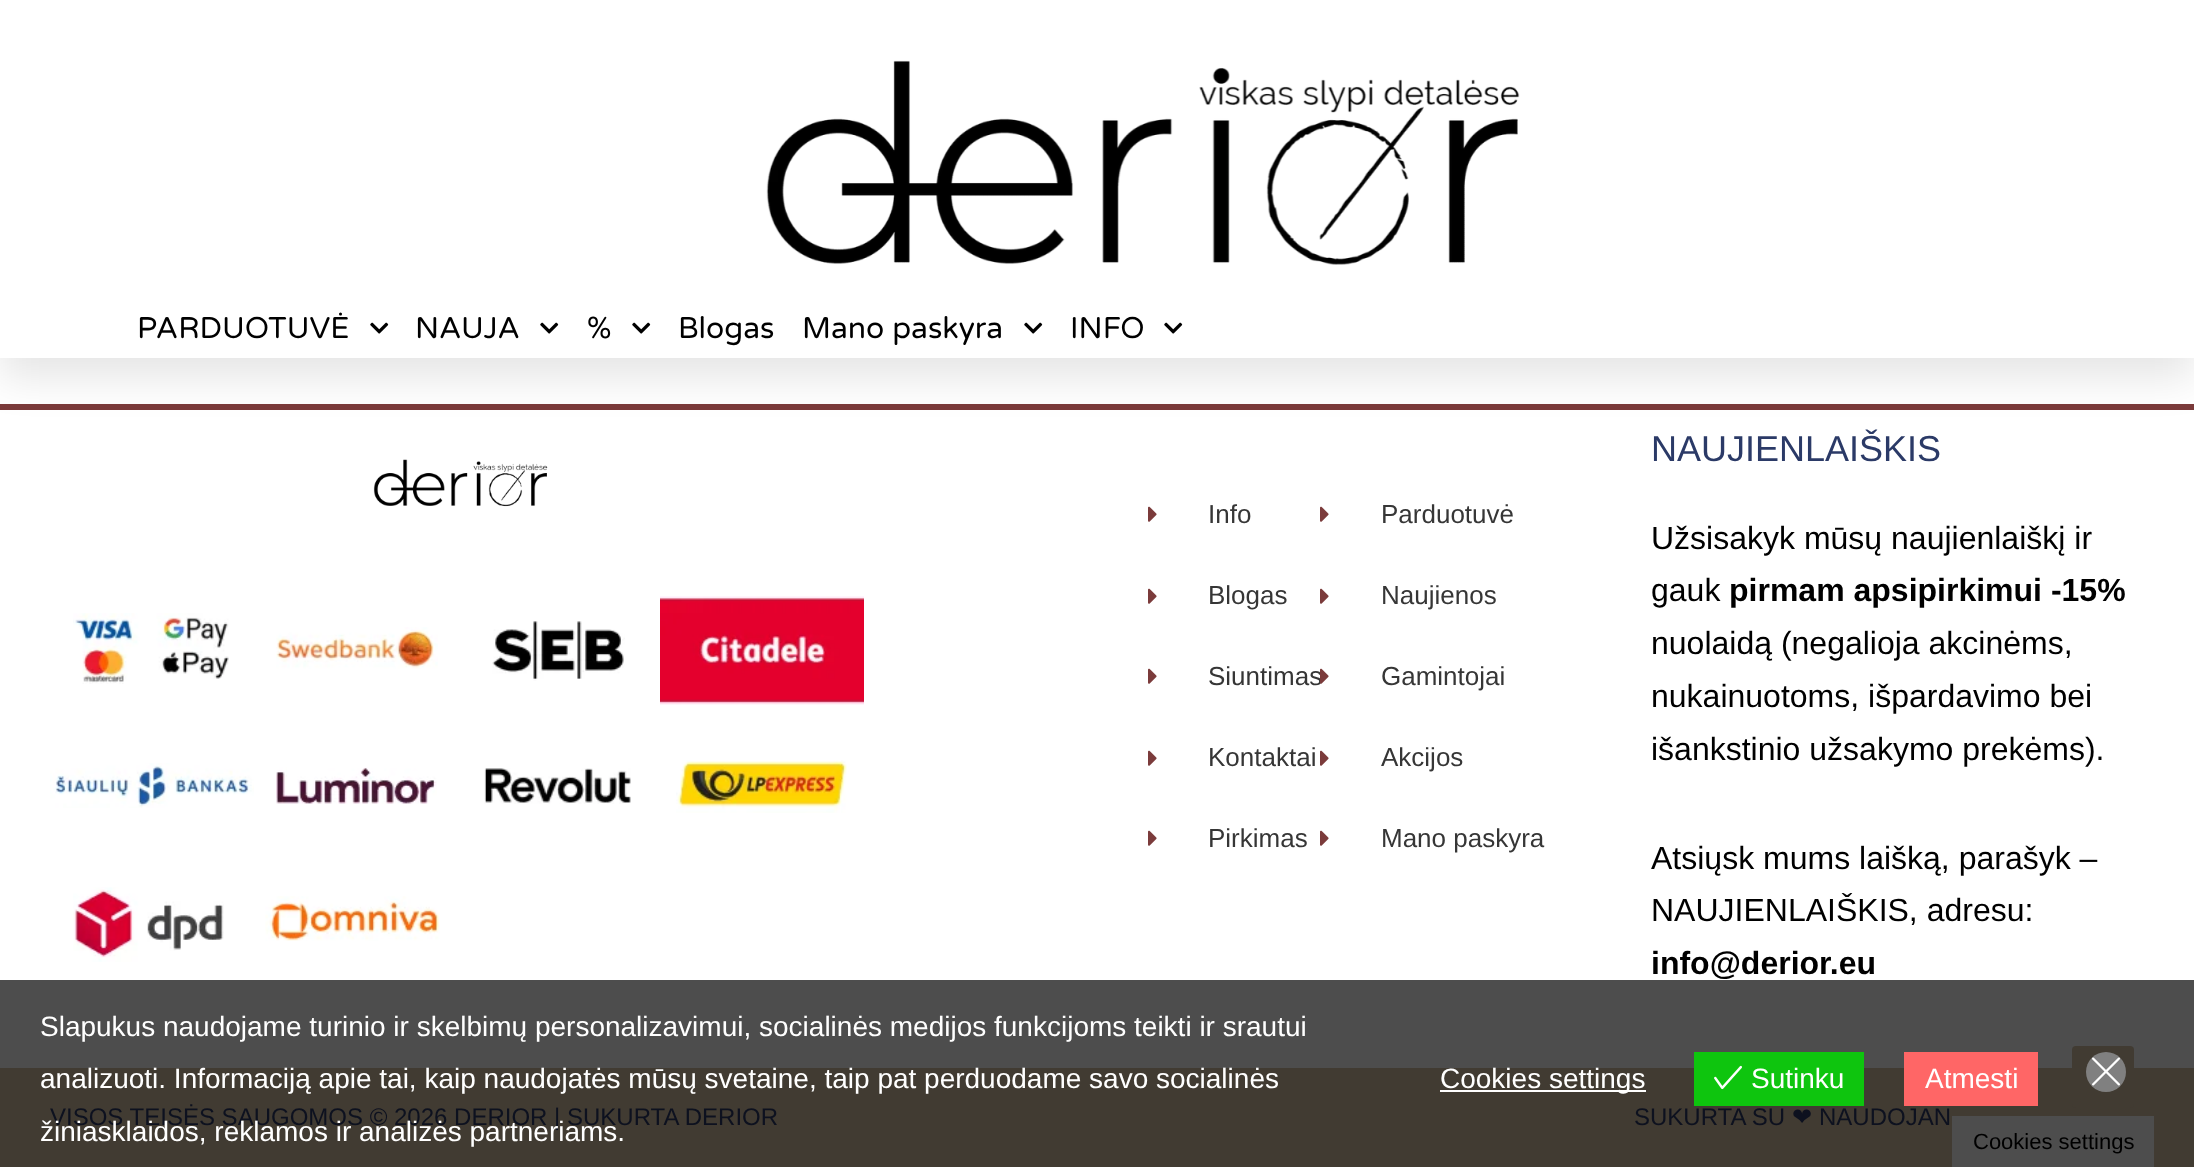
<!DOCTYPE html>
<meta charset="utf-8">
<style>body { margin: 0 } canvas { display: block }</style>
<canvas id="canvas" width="2194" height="1167"></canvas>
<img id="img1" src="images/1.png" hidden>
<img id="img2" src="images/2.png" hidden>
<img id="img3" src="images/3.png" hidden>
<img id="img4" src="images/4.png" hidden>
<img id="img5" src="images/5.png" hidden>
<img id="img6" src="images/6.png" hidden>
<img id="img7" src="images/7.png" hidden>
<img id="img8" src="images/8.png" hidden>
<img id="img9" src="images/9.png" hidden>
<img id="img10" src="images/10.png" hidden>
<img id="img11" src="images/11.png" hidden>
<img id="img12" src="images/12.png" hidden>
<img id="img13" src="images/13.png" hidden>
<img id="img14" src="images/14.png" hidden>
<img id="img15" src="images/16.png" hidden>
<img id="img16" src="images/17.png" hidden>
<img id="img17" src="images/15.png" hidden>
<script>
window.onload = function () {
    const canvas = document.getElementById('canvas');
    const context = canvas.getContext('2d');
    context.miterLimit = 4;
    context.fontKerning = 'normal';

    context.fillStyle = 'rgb(255, 255, 255)';
    context.fillRect(0, 0, 2194, 1167);
    context.fillStyle = 'rgb(77, 77, 77)';
    context.fillRect(0, 980, 2194, 88);
    context.fillStyle = 'rgb(123, 59, 59)';
    context.fillRect(0, 404, 2194, 6);
    context.fillStyle = 'rgba(0, 0, 0, 0.1)';
    context.filter = 'blur(20px)';
    context.beginPath();
    context.rect(0, 20, 2194, 358);
    context.fill();
    context.filter = 'none';
    context.fillStyle = 'rgb(255, 255, 255)';
    context.fillRect(0, 0, 2194, 358);
    context.drawImage(document.getElementById('img1'), 766, 60, 754, 205);
    context.drawImage(document.getElementById('img2'), 370, 322, 19, 12);
    context.drawImage(document.getElementById('img2'), 540, 322, 19, 12);
    context.drawImage(document.getElementById('img2'), 632, 322, 19, 12);
    context.drawImage(document.getElementById('img2'), 1024, 322, 19, 12);
    context.drawImage(document.getElementById('img2'), 1164, 322, 19, 12);
    context.drawImage(document.getElementById('img3'), 373, 459, 175, 48);
    context.drawImage(document.getElementById('img4'), 73, 613, 156, 71);
    context.drawImage(document.getElementById('img5'), 276, 627, 162, 42);
    context.drawImage(document.getElementById('img6'), 492, 621, 133, 60);
    context.drawImage(document.getElementById('img7'), 660, 596, 204, 109);
    context.drawImage(document.getElementById('img8'), 50, 763, 204, 45);
    context.drawImage(document.getElementById('img9'), 276, 767, 161, 37);
    context.drawImage(document.getElementById('img10'), 484, 768, 147, 36);
    context.drawImage(document.getElementById('img11'), 676, 760, 171, 53);
    context.drawImage(document.getElementById('img12'), 73, 887, 151, 75);
    context.drawImage(document.getElementById('img13'), 265, 896, 175, 45);
    context.drawImage(document.getElementById('img14'), 1148, 506, 9, 16);
    context.drawImage(document.getElementById('img14'), 1148, 588, 9, 16);
    context.drawImage(document.getElementById('img14'), 1148, 668, 9, 16);
    context.drawImage(document.getElementById('img14'), 1148, 750, 9, 16);
    context.drawImage(document.getElementById('img14'), 1148, 830, 9, 16);
    context.drawImage(document.getElementById('img14'), 1320, 506, 9, 16);
    context.drawImage(document.getElementById('img14'), 1320, 588, 9, 16);
    context.drawImage(document.getElementById('img14'), 1320, 750, 9, 16);
    context.drawImage(document.getElementById('img14'), 1320, 830, 9, 16);
    context.fillStyle = 'rgb(65, 59, 50)';
    context.fillRect(0, 1068, 2194, 99);
    context.fillStyle = 'rgb(255, 255, 255)';
    context.fillRect(1440, 1090, 206, 2);
    context.fillStyle = 'rgb(14, 197, 14)';
    context.fillRect(1694, 1052, 170, 54);
    context.drawImage(document.getElementById('img15'), 1714, 1065, 28, 25);
    context.fillStyle = 'rgb(255, 102, 102)';
    context.fillRect(1904, 1052, 134, 54);
    context.fillStyle = 'rgb(65, 59, 50)';
    context.beginPath();
    context.roundRect(2072, 1046, 62, 62, 4);
    context.fill();
    context.fillStyle = 'rgb(128, 128, 128)';
    context.beginPath();
    context.arc(2106, 1072, 20, 0, 2 * Math.PI);
    context.fill();
    context.drawImage(document.getElementById('img16'), 2092, 1057, 28, 29);
    context.fillStyle = 'rgb(77, 77, 77)';
    context.fillRect(1952, 1116, 202, 51);
    context.font = '30px Varela Round';
    context.fillStyle = 'rgb(0, 0, 0)';
    context.fillText('PARDUOTUVĖ', 137, 338);
    context.fillText('NAUJA', 415, 338);
    context.fillText('%', 587, 338);
    context.fillText('Blogas', 678, 338);
    context.fillText('Mano paskyra', 802, 338);
    context.fillText('INFO', 1070, 338);
    context.font = '26px Liberation Sans';
    context.fillStyle = 'rgb(54, 54, 54)';
    context.fillText('Info', 1208, 523);
    context.fillText('Blogas', 1208, 604);
    context.fillText('Siuntimas', 1208, 685);
    context.fillText('Kontaktai', 1208, 766);
    context.fillText('Pirkimas', 1208, 847);
    context.fillText('Parduotuvė', 1381, 523);
    context.fillText('Naujienos', 1381, 604);
    context.drawImage(document.getElementById('img17'), 1320, 668, 9, 16);
    context.fillText('Gamintojai', 1381, 685);
    context.fillText('Akcijos', 1381, 766);
    context.fillText('Mano paskyra', 1381, 847);
    context.font = '36px Liberation Sans';
    context.fillStyle = 'rgb(43, 58, 103)';
    context.fillText('NAUJIENLAIŠKIS', 1651, 461);
    context.font = '32px Liberation Sans';
    context.fillStyle = 'rgb(0, 0, 0)';
    context.fillText('Užsisakyk mūsų naujienlaiškį ir', 1651, 549);
    context.fillText('gauk', 1651, 601);
    context.font = 'bold 32px Liberation Sans';
    context.fillText('pirmam apsipirkimui -15%', 1729, 601);
    context.font = '32px Liberation Sans';
    context.fillText('nuolaidą (negalioja akcinėms,', 1651, 654);
    context.fillText('nukainuotoms, išpardavimo bei', 1651, 707);
    context.fillText('išankstinio užsakymo prekėms).', 1651, 760);
    context.fillText('Atsiųsk mums laišką, parašyk –', 1651, 869);
    context.fillText('NAUJIENLAIŠKIS, adresu:', 1651, 921);
    context.font = 'bold 32px Liberation Sans';
    context.fillText('info@derior.eu', 1651, 974);
    context.font = '24px Liberation Sans';
    context.fillStyle = 'rgb(13, 17, 31)';
    context.fillText('VISOS TEISĖS SAUGOMOS © 2026 DERIOR | SUKURTA DERIOR', 50, 1125);
    context.fillText('SUKURTA SU', 1634, 1125);
    context.font = '24px DejaVu Sans';
    context.fillText('❤', 1792, 1125);
    context.font = '24px Liberation Sans';
    context.fillText('NAUDOJAN', 1819, 1125);
    context.font = '28px Liberation Sans';
    context.fillStyle = 'rgb(255, 255, 255)';
    context.fillText('Slapukus naudojame turinio ir skelbimų personalizavimui, socialinės medijos funkcijoms teikti ir srautui', 40, 1036);
    context.fillText('analizuoti. Informaciją apie tai, kaip naudojatės mūsų svetaine, taip pat perduodame savo socialinės', 40, 1088);
    context.fillText('žiniasklaidos, reklamos ir analizės partneriams.', 40, 1141);
    context.fillText('Cookies settings', 1440, 1088);
    context.fillText('Sutinku', 1751, 1088);
    context.fillText('Atmesti', 1925, 1088);
    context.font = '22px Liberation Sans';
    context.fillStyle = 'rgb(0, 0, 0)';
    context.fillText('Cookies settings', 1973, 1149);
};
</script>
